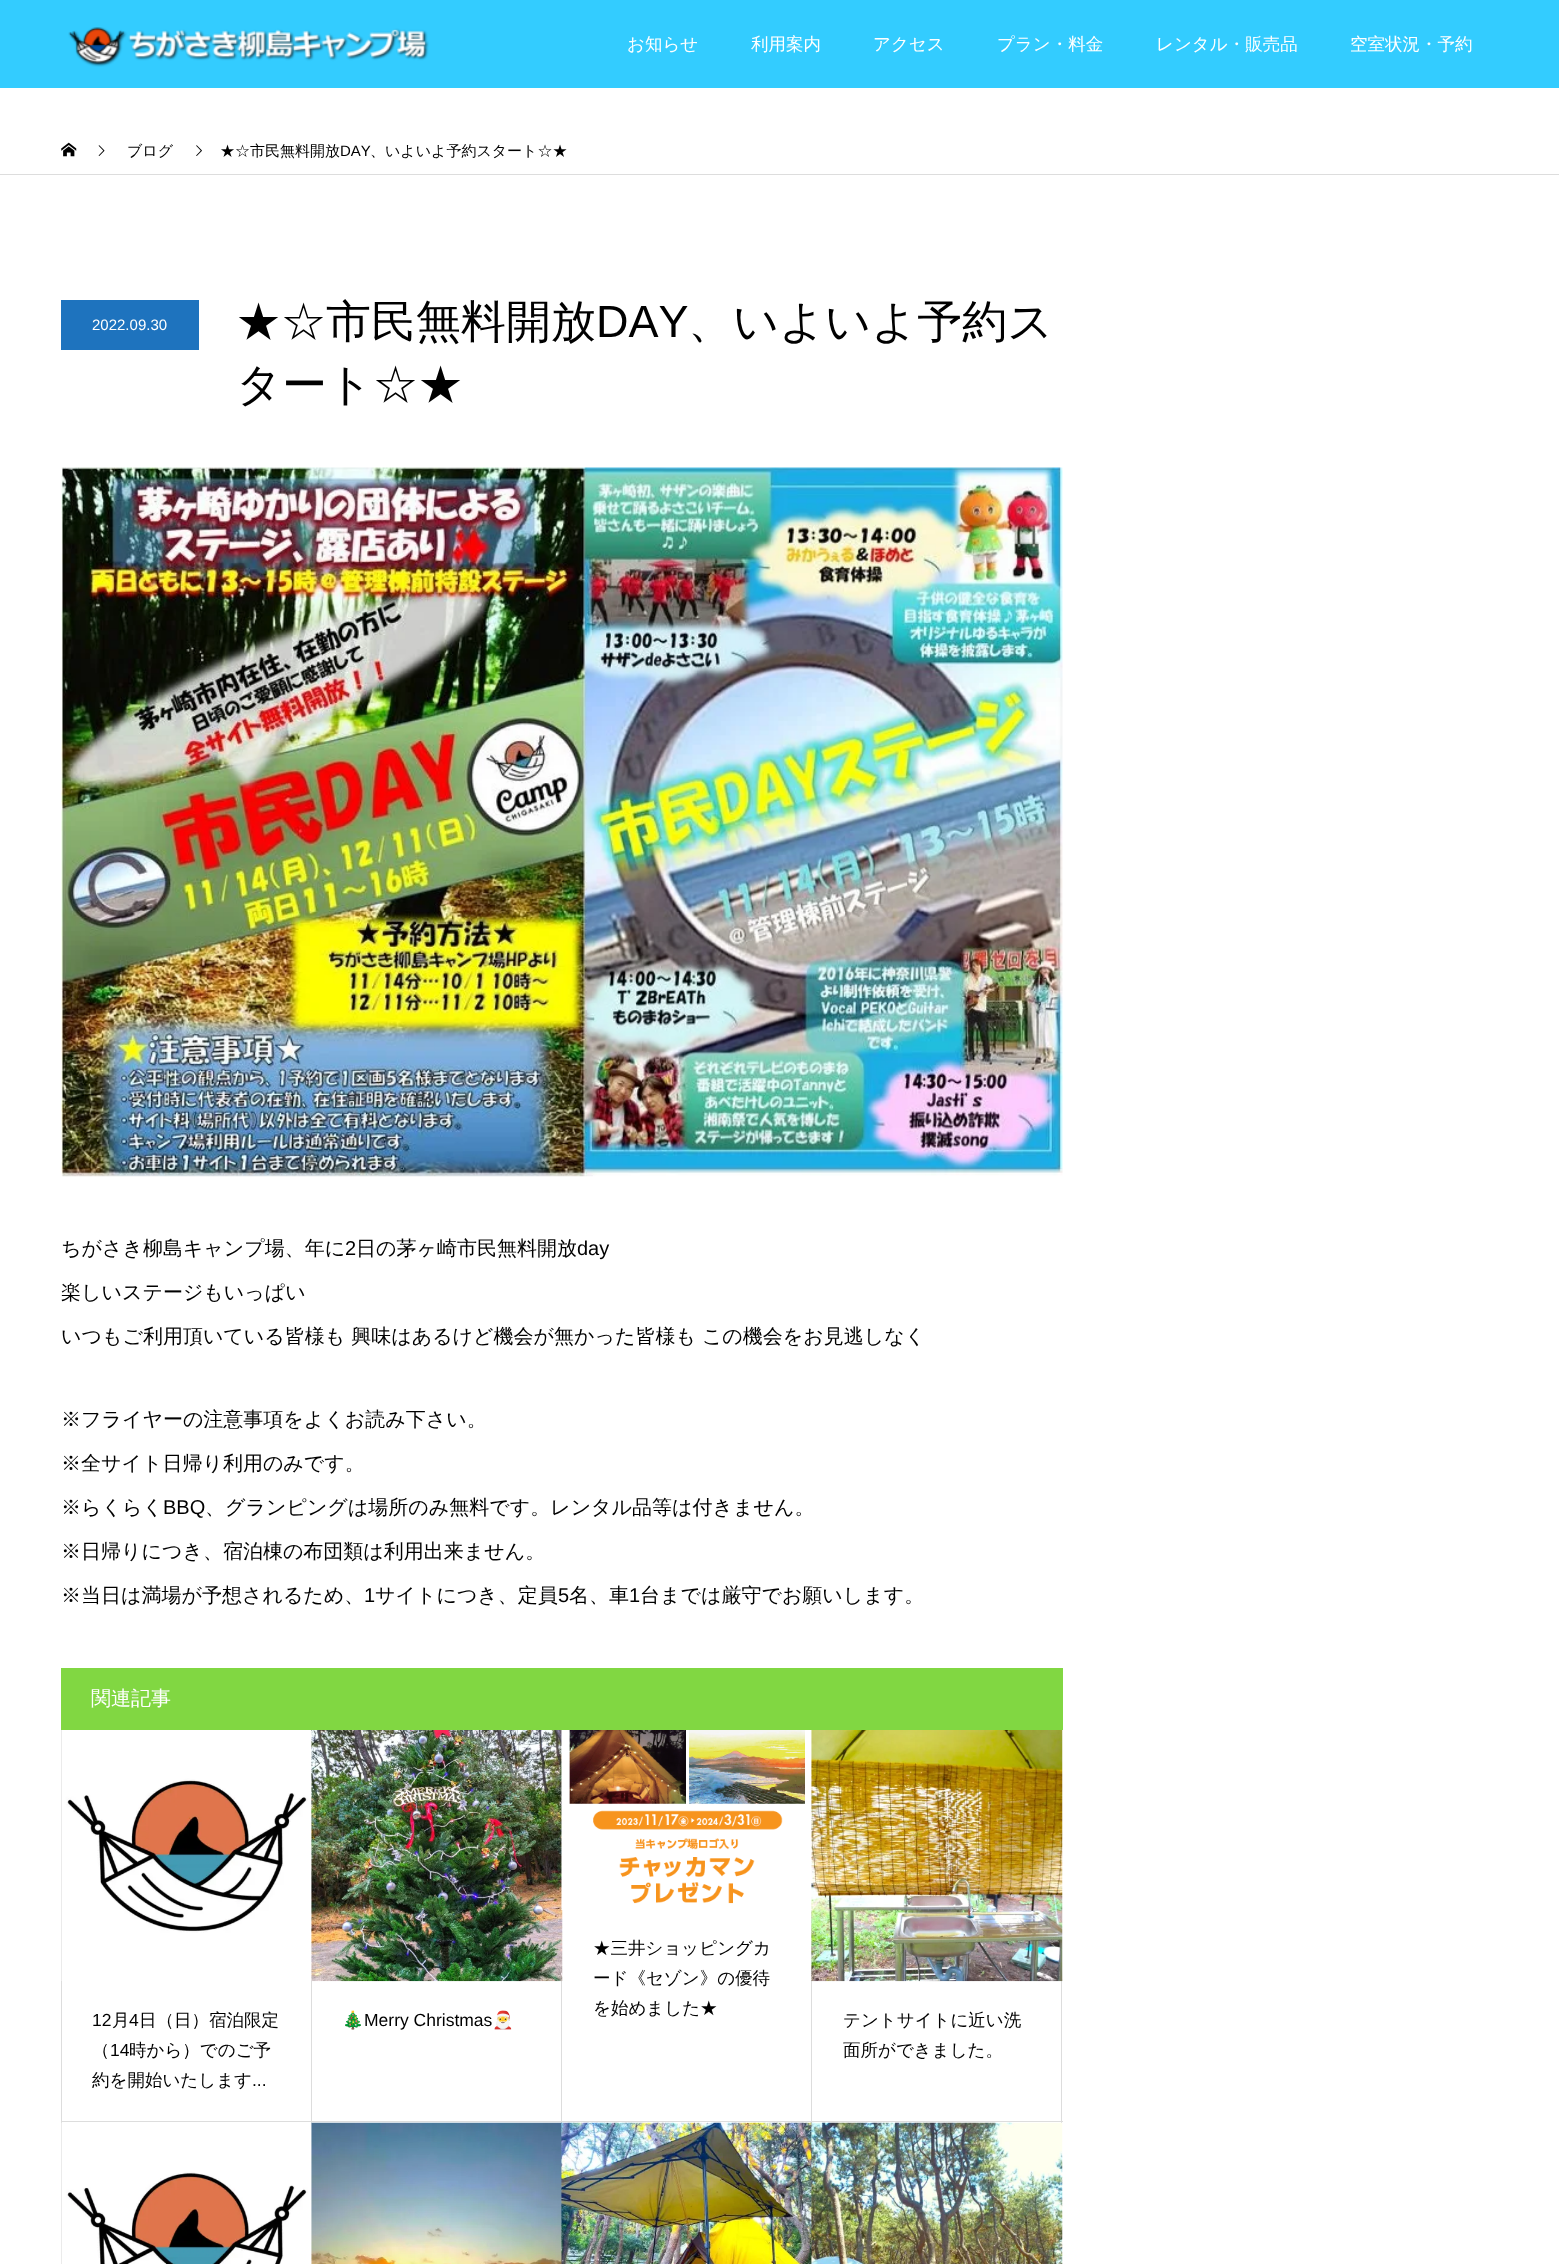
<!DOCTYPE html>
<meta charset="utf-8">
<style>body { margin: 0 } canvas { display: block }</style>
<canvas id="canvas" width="1559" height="2264"></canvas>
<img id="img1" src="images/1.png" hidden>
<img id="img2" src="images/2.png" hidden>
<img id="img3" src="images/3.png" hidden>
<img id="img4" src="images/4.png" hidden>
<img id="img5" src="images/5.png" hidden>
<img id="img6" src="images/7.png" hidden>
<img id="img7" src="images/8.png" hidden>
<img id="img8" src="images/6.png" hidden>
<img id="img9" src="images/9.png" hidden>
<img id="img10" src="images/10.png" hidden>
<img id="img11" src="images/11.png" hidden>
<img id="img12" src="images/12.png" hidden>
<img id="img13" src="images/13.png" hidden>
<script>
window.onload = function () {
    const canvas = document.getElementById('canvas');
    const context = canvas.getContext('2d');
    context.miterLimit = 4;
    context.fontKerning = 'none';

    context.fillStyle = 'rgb(255, 255, 255)';
    context.fillRect(0, 0, 1559, 2264);
    context.fillStyle = 'rgb(51, 204, 255)';
    context.fillRect(0, 0, 1559, 88);
    context.drawImage(document.getElementById('img1'), 68, 27, 361, 40);
    context.fillStyle = 'rgb(221, 221, 221)';
    context.fillRect(0, 174, 1559, 1);
    context.drawImage(document.getElementById('img2'), 61, 142, 16, 15);
    context.drawImage(document.getElementById('img3'), 98, 145, 7, 11);
    context.drawImage(document.getElementById('img4'), 196, 145, 6, 11);
    context.fillStyle = 'rgb(30, 115, 190)';
    context.fillRect(61, 300, 138, 50);
    context.drawImage(document.getElementById('img5'), 61, 467, 1002, 710);
    context.fillStyle = 'rgb(129, 215, 66)';
    context.fillRect(61, 1668, 1002, 62);
    context.fillStyle = 'rgb(221, 221, 221)';
    context.fillRect(811, 1910, 1, 213);
    context.fillRect(561, 1981, 1, 142);
    context.fillRect(311, 1981, 1, 142);
    context.fillRect(61, 2121, 252, 1);
    context.fillRect(311, 2121, 252, 1);
    context.fillRect(561, 2121, 252, 1);
    context.fillRect(61, 1730, 1, 534);
    context.drawImage(document.getElementById('img6'), 61, 1730, 251, 251);
    context.drawImage(document.getElementById('img7'), 311, 1730, 252, 252);
    context.drawImage(document.getElementById('img8'), 561, 1730, 251, 180);
    context.fillRect(1061, 1981, 1, 142);
    context.fillRect(811, 2121, 252, 1);
    context.drawImage(document.getElementById('img9'), 811, 1730, 252, 252);
    context.drawImage(document.getElementById('img10'), 61, 2122, 251, 142);
    context.drawImage(document.getElementById('img11'), 311, 2122, 252, 142);
    context.drawImage(document.getElementById('img12'), 561, 2122, 252, 142);
    context.drawImage(document.getElementById('img13'), 811, 2122, 252, 142);
    context.font = '500 17.5px WenQuanYi Zen Hei';
    context.fillStyle = 'rgb(255, 255, 255)';
    context.fillText('お知らせ', 627, 50);
    context.fillText('利用案内', 751, 50);
    context.fillText('アクセス', 873, 50);
    context.fillText('プラン・料金', 997, 50);
    context.fillText('レンタル・販売品', 1156, 50);
    context.fillText('空室状況・予約', 1350, 50);
    context.font = '500 15px WenQuanYi Zen Hei';
    context.fillStyle = 'rgb(0, 0, 0)';
    context.fillText('ブログ', 127, 156);
    context.fillText('★☆市民無料開放', 220, 156);
    context.font = '15px Liberation Sans';
    context.fillText('DAY', 340, 156);
    context.font = '500 15px WenQuanYi Zen Hei';
    context.fillText('、いよいよ予約スタート☆★', 370, 156);
    context.font = '15px Liberation Sans';
    context.fillStyle = 'rgb(255, 255, 255)';
    context.fillText('2022.09.30', 92, 330);
    context.font = '500 45px WenQuanYi Zen Hei';
    context.fillStyle = 'rgb(0, 0, 0)';
    context.fillText('★☆市民無料開放', 236, 337);
    context.font = '45px Liberation Sans';
    context.fillText('DAY', 596, 337);
    context.font = '500 45px WenQuanYi Zen Hei';
    context.fillText('、いよいよ予約ス', 688, 337);
    context.fillText('タート☆★', 236, 400);
    context.font = '500 20px WenQuanYi Zen Hei';
    context.fillText('ちがさき柳島キャンプ場、年に', 61, 1255);
    context.font = '20px Liberation Sans';
    context.fillText('2', 345, 1255);
    context.font = '500 20px WenQuanYi Zen Hei';
    context.fillText('日の茅ヶ崎市民無料開放', 356, 1255);
    context.font = '20px Liberation Sans';
    context.fillText('day', 577, 1255);
    context.font = '500 20px WenQuanYi Zen Hei';
    context.fillText('楽しいステージもいっぱい', 61, 1299);
    context.fillText('いつもご利用頂いている皆様も 興味はあるけど機会が無かった皆様も この機会をお見逃しなく', 61, 1343);
    context.fillText('※フライヤーの注意事項をよくお読み下さい。', 61, 1426);
    context.fillText('※全サイト日帰り利用のみです。', 61, 1470);
    context.fillText('※らくらく', 61, 1514);
    context.font = '20px Liberation Sans';
    context.fillText('BBQ', 163, 1514);
    context.font = '500 20px WenQuanYi Zen Hei';
    context.fillText('、グランピングは場所のみ無料です。レンタル品等は付きません。', 205, 1514);
    context.fillText('※日帰りにつき、宿泊棟の布団類は利用出来ません。', 61, 1558);
    context.fillText('※当日は満場が予想されるため、', 61, 1602);
    context.font = '20px Liberation Sans';
    context.fillText('1', 364, 1602);
    context.font = '500 20px WenQuanYi Zen Hei';
    context.fillText('サイトにつき、定員', 375, 1602);
    context.font = '20px Liberation Sans';
    context.fillText('5', 558, 1602);
    context.font = '500 20px WenQuanYi Zen Hei';
    context.fillText('名、車', 569, 1602);
    context.font = '20px Liberation Sans';
    context.fillText('1', 629, 1602);
    context.font = '500 20px WenQuanYi Zen Hei';
    context.fillText('台までは厳守でお願いします。', 640, 1602);
    context.fillStyle = 'rgb(255, 255, 255)';
    context.fillText('関連記事', 91, 1705);
    context.font = '500 17.5px WenQuanYi Zen Hei';
    context.fillStyle = 'rgb(0, 0, 0)';
    context.fillText('★三井ショッピングカ', 593, 1954);
    context.fillText('ード《セゾン》の優待', 593, 1984);
    context.fillText('を始めました★', 593, 2014);
    context.font = '17.5px Liberation Sans';
    context.fillText('12', 92, 2026);
    context.font = '500 17.5px WenQuanYi Zen Hei';
    context.fillText('月', 112, 2026);
    context.font = '17.5px Liberation Sans';
    context.fillText('4', 129, 2026);
    context.font = '500 17.5px WenQuanYi Zen Hei';
    context.fillText('日（日）宿泊限定', 139, 2026);
    context.fillText('（', 92, 2056);
    context.font = '17.5px Liberation Sans';
    context.fillText('14', 110, 2056);
    context.font = '500 17.5px WenQuanYi Zen Hei';
    context.fillText('時から）でのご予', 129, 2056);
    context.fillText('約を開始いたします', 92, 2086);
    context.font = '17.5px Liberation Sans';
    context.fillText('...', 252, 2086);
    context.font = '17.5px Noto Color Emoji';
    context.fillText('🎄', 342, 2026);
    context.font = '17.5px Liberation Sans';
    context.fillText('Merry Christmas', 364, 2026);
    context.font = '17.5px Noto Color Emoji';
    context.fillText('🎅', 492, 2026);
    context.font = '500 17.5px WenQuanYi Zen Hei';
    context.fillText('テントサイトに近い洗', 843, 2026);
    context.fillText('面所ができました。', 843, 2056);
};
</script>
